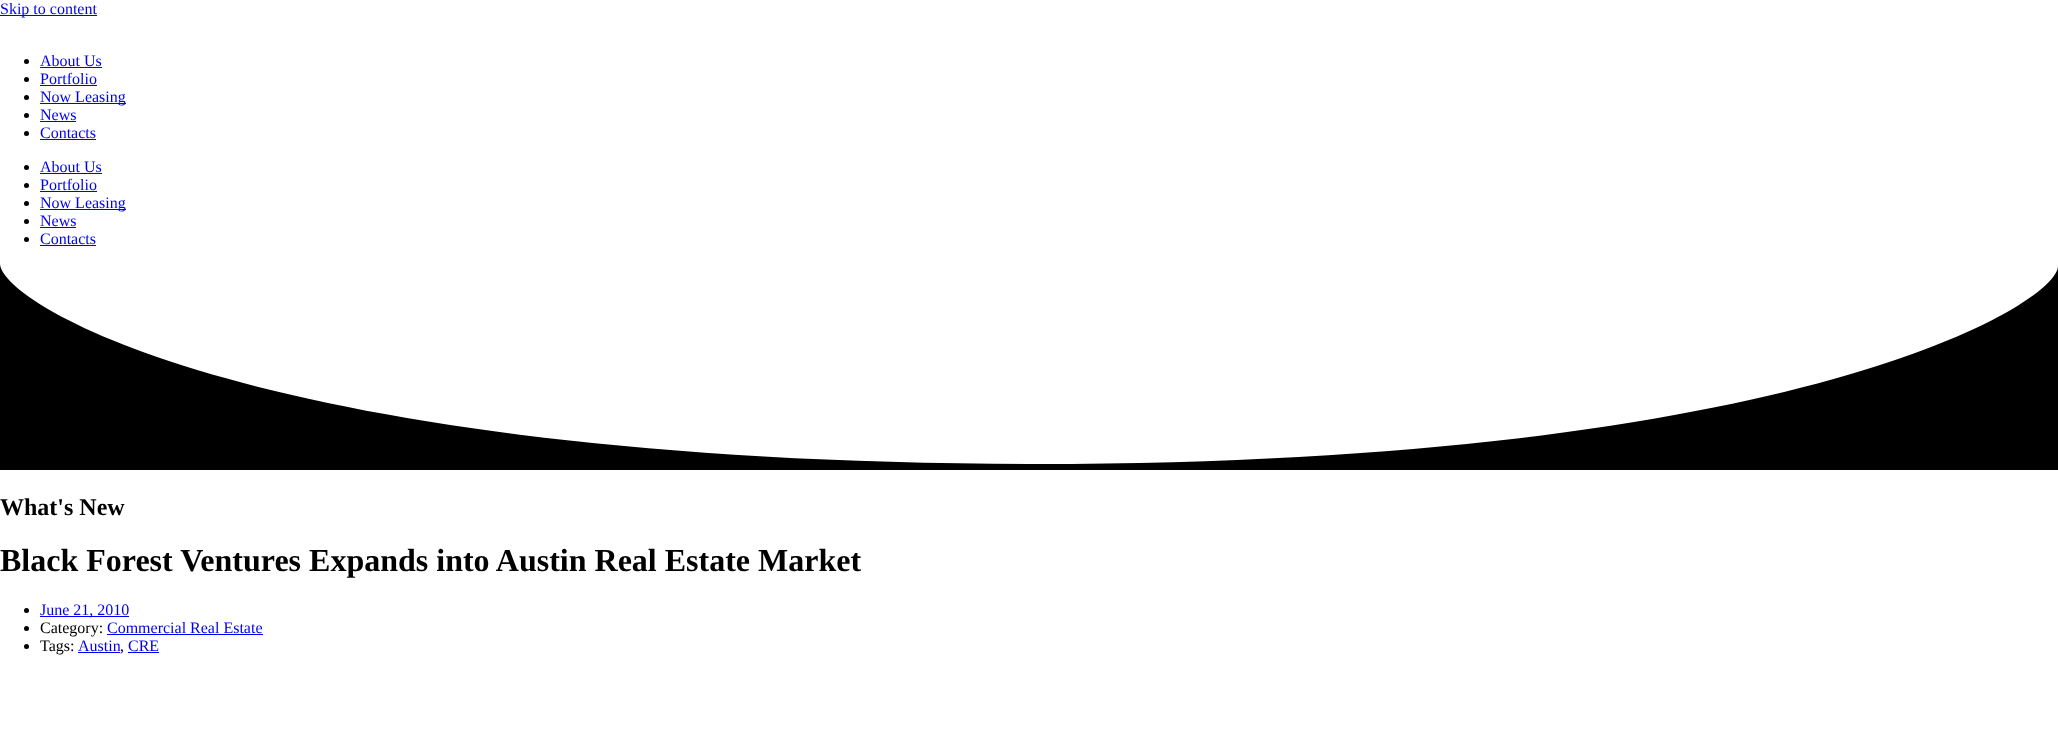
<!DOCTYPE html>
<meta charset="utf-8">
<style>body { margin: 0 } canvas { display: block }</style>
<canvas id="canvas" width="2058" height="747"></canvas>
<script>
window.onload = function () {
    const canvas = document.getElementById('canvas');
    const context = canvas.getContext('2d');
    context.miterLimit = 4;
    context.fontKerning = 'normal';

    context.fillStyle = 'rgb(255, 255, 255)';
    context.fillRect(0, 0, 2058, 747);
    context.fillStyle = 'rgb(0, 0, 238)';
    context.fillRect(0, 15, 97, 1);
    context.fillStyle = 'rgb(0, 0, 0)';
    context.beginPath();
    context.arc(26.5, 61.5, 2.5, 0, 2 * Math.PI);
    context.fill();
    context.fillStyle = 'rgb(0, 0, 238)';
    context.fillRect(40, 67, 62, 1);
    context.fillStyle = 'rgb(0, 0, 0)';
    context.beginPath();
    context.arc(26.5, 79.5, 2.5, 0, 2 * Math.PI);
    context.fill();
    context.fillStyle = 'rgb(0, 0, 238)';
    context.fillRect(40, 85, 57, 1);
    context.fillStyle = 'rgb(0, 0, 0)';
    context.beginPath();
    context.arc(26.5, 97.5, 2.5, 0, 2 * Math.PI);
    context.fill();
    context.fillStyle = 'rgb(0, 0, 238)';
    context.fillRect(40, 103, 86, 1);
    context.fillStyle = 'rgb(0, 0, 0)';
    context.beginPath();
    context.arc(26.5, 115.5, 2.5, 0, 2 * Math.PI);
    context.fill();
    context.fillStyle = 'rgb(0, 0, 238)';
    context.fillRect(40, 121, 36, 1);
    context.fillStyle = 'rgb(0, 0, 0)';
    context.beginPath();
    context.arc(26.5, 133.5, 2.5, 0, 2 * Math.PI);
    context.fill();
    context.fillStyle = 'rgb(0, 0, 238)';
    context.fillRect(40, 139, 56, 1);
    context.fillStyle = 'rgb(0, 0, 0)';
    context.beginPath();
    context.arc(26.5, 167.5, 2.5, 0, 2 * Math.PI);
    context.fill();
    context.fillStyle = 'rgb(0, 0, 238)';
    context.fillRect(40, 173, 62, 1);
    context.fillStyle = 'rgb(0, 0, 0)';
    context.beginPath();
    context.arc(26.5, 185.5, 2.5, 0, 2 * Math.PI);
    context.fill();
    context.fillStyle = 'rgb(0, 0, 238)';
    context.fillRect(40, 191, 57, 1);
    context.fillStyle = 'rgb(0, 0, 0)';
    context.beginPath();
    context.arc(26.5, 203.5, 2.5, 0, 2 * Math.PI);
    context.fill();
    context.fillStyle = 'rgb(0, 0, 238)';
    context.fillRect(40, 209, 86, 1);
    context.fillStyle = 'rgb(0, 0, 0)';
    context.beginPath();
    context.arc(26.5, 221.5, 2.5, 0, 2 * Math.PI);
    context.fill();
    context.fillStyle = 'rgb(0, 0, 238)';
    context.fillRect(40, 227, 36, 1);
    context.fillStyle = 'rgb(0, 0, 0)';
    context.beginPath();
    context.arc(26.5, 239.5, 2.5, 0, 2 * Math.PI);
    context.fill();
    context.fillStyle = 'rgb(0, 0, 238)';
    context.fillRect(40, 245, 56, 1);
    context.fillStyle = 'rgb(0, 0, 0)';
    context.beginPath();
    context.moveTo(1029, 464);
    context.bezierCurveTo(261, 462, 2, 305, 0, 264);
    context.lineTo(0, 470);
    context.lineTo(2058, 470);
    context.lineTo(2058, 266);
    context.bezierCurveTo(2058, 304, 1797, 465, 1029, 464);
    context.closePath();
    context.fill();
    context.beginPath();
    context.arc(26.5, 610.5, 2.5, 0, 2 * Math.PI);
    context.fill();
    context.fillStyle = 'rgb(0, 0, 238)';
    context.fillRect(40, 616, 89, 1);
    context.fillStyle = 'rgb(0, 0, 0)';
    context.beginPath();
    context.arc(26.5, 628.5, 2.5, 0, 2 * Math.PI);
    context.fill();
    context.fillStyle = 'rgb(0, 0, 238)';
    context.fillRect(107, 634, 156, 1);
    context.fillStyle = 'rgb(0, 0, 0)';
    context.beginPath();
    context.arc(26.5, 646.5, 2.5, 0, 2 * Math.PI);
    context.fill();
    context.fillStyle = 'rgb(0, 0, 238)';
    context.fillRect(78, 652, 42, 1);
    context.fillRect(128, 652, 31, 1);
    context.font = '16px Liberation Serif';
    context.fillText('Skip to content', 0, 14);
    context.fillText('About Us', 40, 66);
    context.fillText('Portfolio', 40, 84);
    context.fillText('Now Leasing', 40, 102);
    context.fillText('News', 40, 120);
    context.fillText('Contacts', 40, 138);
    context.fillText('About Us', 40, 172);
    context.fillText('Portfolio', 40, 190);
    context.fillText('Now Leasing', 40, 208);
    context.fillText('News', 40, 226);
    context.fillText('Contacts', 40, 244);
    context.font = 'bold 24px Liberation Serif';
    context.fillStyle = 'rgb(0, 0, 0)';
    context.fillText('What\'s New', 0, 515);
    context.font = 'bold 32px Liberation Serif';
    context.fillText('Black Forest Ventures Expands into Austin Real Estate Market', 0, 571);
    context.font = '16px Liberation Serif';
    context.fillStyle = 'rgb(0, 0, 238)';
    context.fillText('June 21, 2010', 40, 615);
    context.fillStyle = 'rgb(0, 0, 0)';
    context.fillText('Category:', 40, 633);
    context.fillStyle = 'rgb(0, 0, 238)';
    context.fillText('Commercial Real Estate', 107, 633);
    context.fillStyle = 'rgb(0, 0, 0)';
    context.fillText('Tags:', 40, 651);
    context.fillStyle = 'rgb(0, 0, 238)';
    context.fillText('Austin', 78, 651);
    context.fillText('CRE', 128, 651);
    context.fillStyle = 'rgb(0, 0, 0)';
    context.fillText(',', 120, 651);
};
</script>
